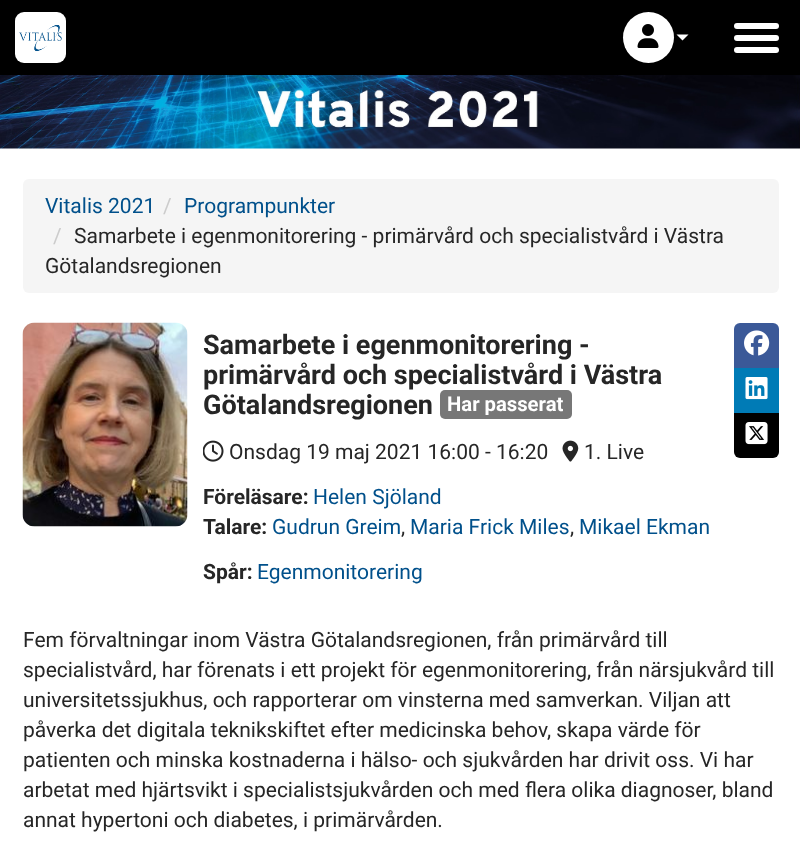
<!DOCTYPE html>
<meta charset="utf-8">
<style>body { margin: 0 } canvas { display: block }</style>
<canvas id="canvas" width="800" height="861"></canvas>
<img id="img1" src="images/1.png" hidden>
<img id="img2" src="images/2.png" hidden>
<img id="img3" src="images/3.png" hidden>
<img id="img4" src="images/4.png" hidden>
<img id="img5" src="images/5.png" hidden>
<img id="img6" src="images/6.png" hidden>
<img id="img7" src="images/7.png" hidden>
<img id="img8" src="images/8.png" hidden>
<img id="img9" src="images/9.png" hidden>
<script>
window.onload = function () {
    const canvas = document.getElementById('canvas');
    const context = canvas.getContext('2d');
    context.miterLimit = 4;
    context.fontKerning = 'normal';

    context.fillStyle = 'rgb(255, 255, 255)';
    context.fillRect(0, 0, 800, 861);
    context.fillStyle = 'rgb(0, 0, 0)';
    context.fillRect(0, 0, 800, 75);
    context.drawImage(document.getElementById('img1'), 15, 12, 51, 51);
    context.fillStyle = 'rgb(255, 255, 255)';
    context.beginPath();
    context.arc(648.5, 37.5, 25.5, 0, 2 * Math.PI);
    context.fill();
    context.drawImage(document.getElementById('img2'), 637, 24, 22, 24);
    context.beginPath();
    context.moveTo(676.5, 34.5);
    context.lineTo(688.5, 34.5);
    context.lineTo(682.5, 40.5);
    context.closePath();
    context.fill();
    context.beginPath();
    context.roundRect(734, 23, 45, 6, 3);
    context.fill();
    context.beginPath();
    context.roundRect(734, 35, 45, 6, 3);
    context.fill();
    context.beginPath();
    context.roundRect(734, 47, 45, 6, 3);
    context.fill();
    context.drawImage(document.getElementById('img3'), 0, 75, 800, 74);
    context.fillStyle = 'rgb(245, 245, 245)';
    context.beginPath();
    context.roundRect(23, 179, 756, 114, 6);
    context.fill();
    context.drawImage(document.getElementById('img4'), 22, 322, 166, 205);
    context.fillStyle = 'rgb(119, 119, 119)';
    context.beginPath();
    context.roundRect(440, 390, 132, 29, 5);
    context.fill();
    context.fillStyle = 'rgb(59, 89, 152)';
    context.beginPath();
    context.roundRect(734, 323, 45, 45, [6, 6, 0, 0]);
    context.fill();
    context.drawImage(document.getElementById('img5'), 744, 330, 26, 26);
    context.fillStyle = 'rgb(0, 123, 182)';
    context.fillRect(734, 368, 45, 45);
    context.drawImage(document.getElementById('img6'), 745, 377, 23, 23);
    context.fillStyle = 'rgb(0, 0, 0)';
    context.beginPath();
    context.roundRect(734, 413, 45, 45, [0, 0, 6, 6]);
    context.fill();
    context.drawImage(document.getElementById('img7'), 745, 422, 23, 23);
    context.drawImage(document.getElementById('img8'), 203, 440, 21, 22);
    context.drawImage(document.getElementById('img9'), 562, 440, 17, 22);
    context.font = '21px Roboto';
    context.fillStyle = 'rgb(0, 80, 139)';
    context.fillText('Vitalis 2021', 45, 213);
    context.fillStyle = 'rgb(204, 204, 204)';
    context.fillText('/', 163, 213);
    context.fillStyle = 'rgb(0, 80, 139)';
    context.fillText('Programpunkter', 184, 213);
    context.fillStyle = 'rgb(204, 204, 204)';
    context.fillText('/', 53, 243);
    context.fillStyle = 'rgb(38, 38, 38)';
    context.fillText('Samarbete i egenmonitorering - primärvård och specialistvård i Västra', 74, 243);
    context.fillText('Götalandsregionen', 45, 273);
    context.font = 'bold 27px Roboto';
    context.fillText('Samarbete i egenmonitorering -', 203, 354);
    context.fillText('primärvård och specialistvård i Västra', 203, 384);
    context.fillText('Götalandsregionen', 203, 414);
    context.font = 'bold 20.25px Roboto';
    context.fillStyle = 'rgb(255, 255, 255)';
    context.fillText('Har passerat', 447, 411);
    context.font = '21px Roboto';
    context.fillStyle = 'rgb(38, 38, 38)';
    context.fillText('Onsdag 19 maj 2021 16:00 - 16:20', 229, 459);
    context.fillText('1. Live', 584, 459);
    context.font = 'bold 21px Roboto';
    context.fillText('Föreläsare:', 203, 504);
    context.font = '21px Roboto';
    context.fillStyle = 'rgb(0, 80, 139)';
    context.fillText('Helen Sjöland', 313, 504);
    context.font = 'bold 21px Roboto';
    context.fillStyle = 'rgb(38, 38, 38)';
    context.fillText('Talare:', 203, 534);
    context.font = '21px Roboto';
    context.fillStyle = 'rgb(0, 80, 139)';
    context.fillText('Gudrun Greim', 272, 534);
    context.fillStyle = 'rgb(38, 38, 38)';
    context.fillText(',', 401, 534);
    context.fillStyle = 'rgb(0, 80, 139)';
    context.fillText('Maria Frick Miles', 410, 534);
    context.fillStyle = 'rgb(38, 38, 38)';
    context.fillText(',', 570, 534);
    context.fillStyle = 'rgb(0, 80, 139)';
    context.fillText('Mikael Ekman', 579, 534);
    context.font = 'bold 21px Roboto';
    context.fillStyle = 'rgb(38, 38, 38)';
    context.fillText('Spår:', 203, 579);
    context.font = '21px Roboto';
    context.fillStyle = 'rgb(0, 80, 139)';
    context.fillText('Egenmonitorering', 257, 579);
    context.fillStyle = 'rgb(38, 38, 38)';
    context.fillText('Fem förvaltningar inom Västra Götalandsregionen, från primärvård till', 23, 647);
    context.fillText('specialistvård, har förenats i ett projekt för egenmonitorering, från närsjukvård till', 23, 677);
    context.fillText('universitetssjukhus, och rapporterar om vinsterna med samverkan. Viljan att', 23, 707);
    context.fillText('påverka det digitala teknikskiftet efter medicinska behov, skapa värde för', 23, 737);
    context.fillText('patienten och minska kostnaderna i hälso- och sjukvården har drivit oss. Vi har', 23, 767);
    context.fillText('arbetat med hjärtsvikt i specialistsjukvården och med flera olika diagnoser, bland', 23, 797);
    context.fillText('annat hypertoni och diabetes, i primärvården.', 23, 827);
};
</script>
